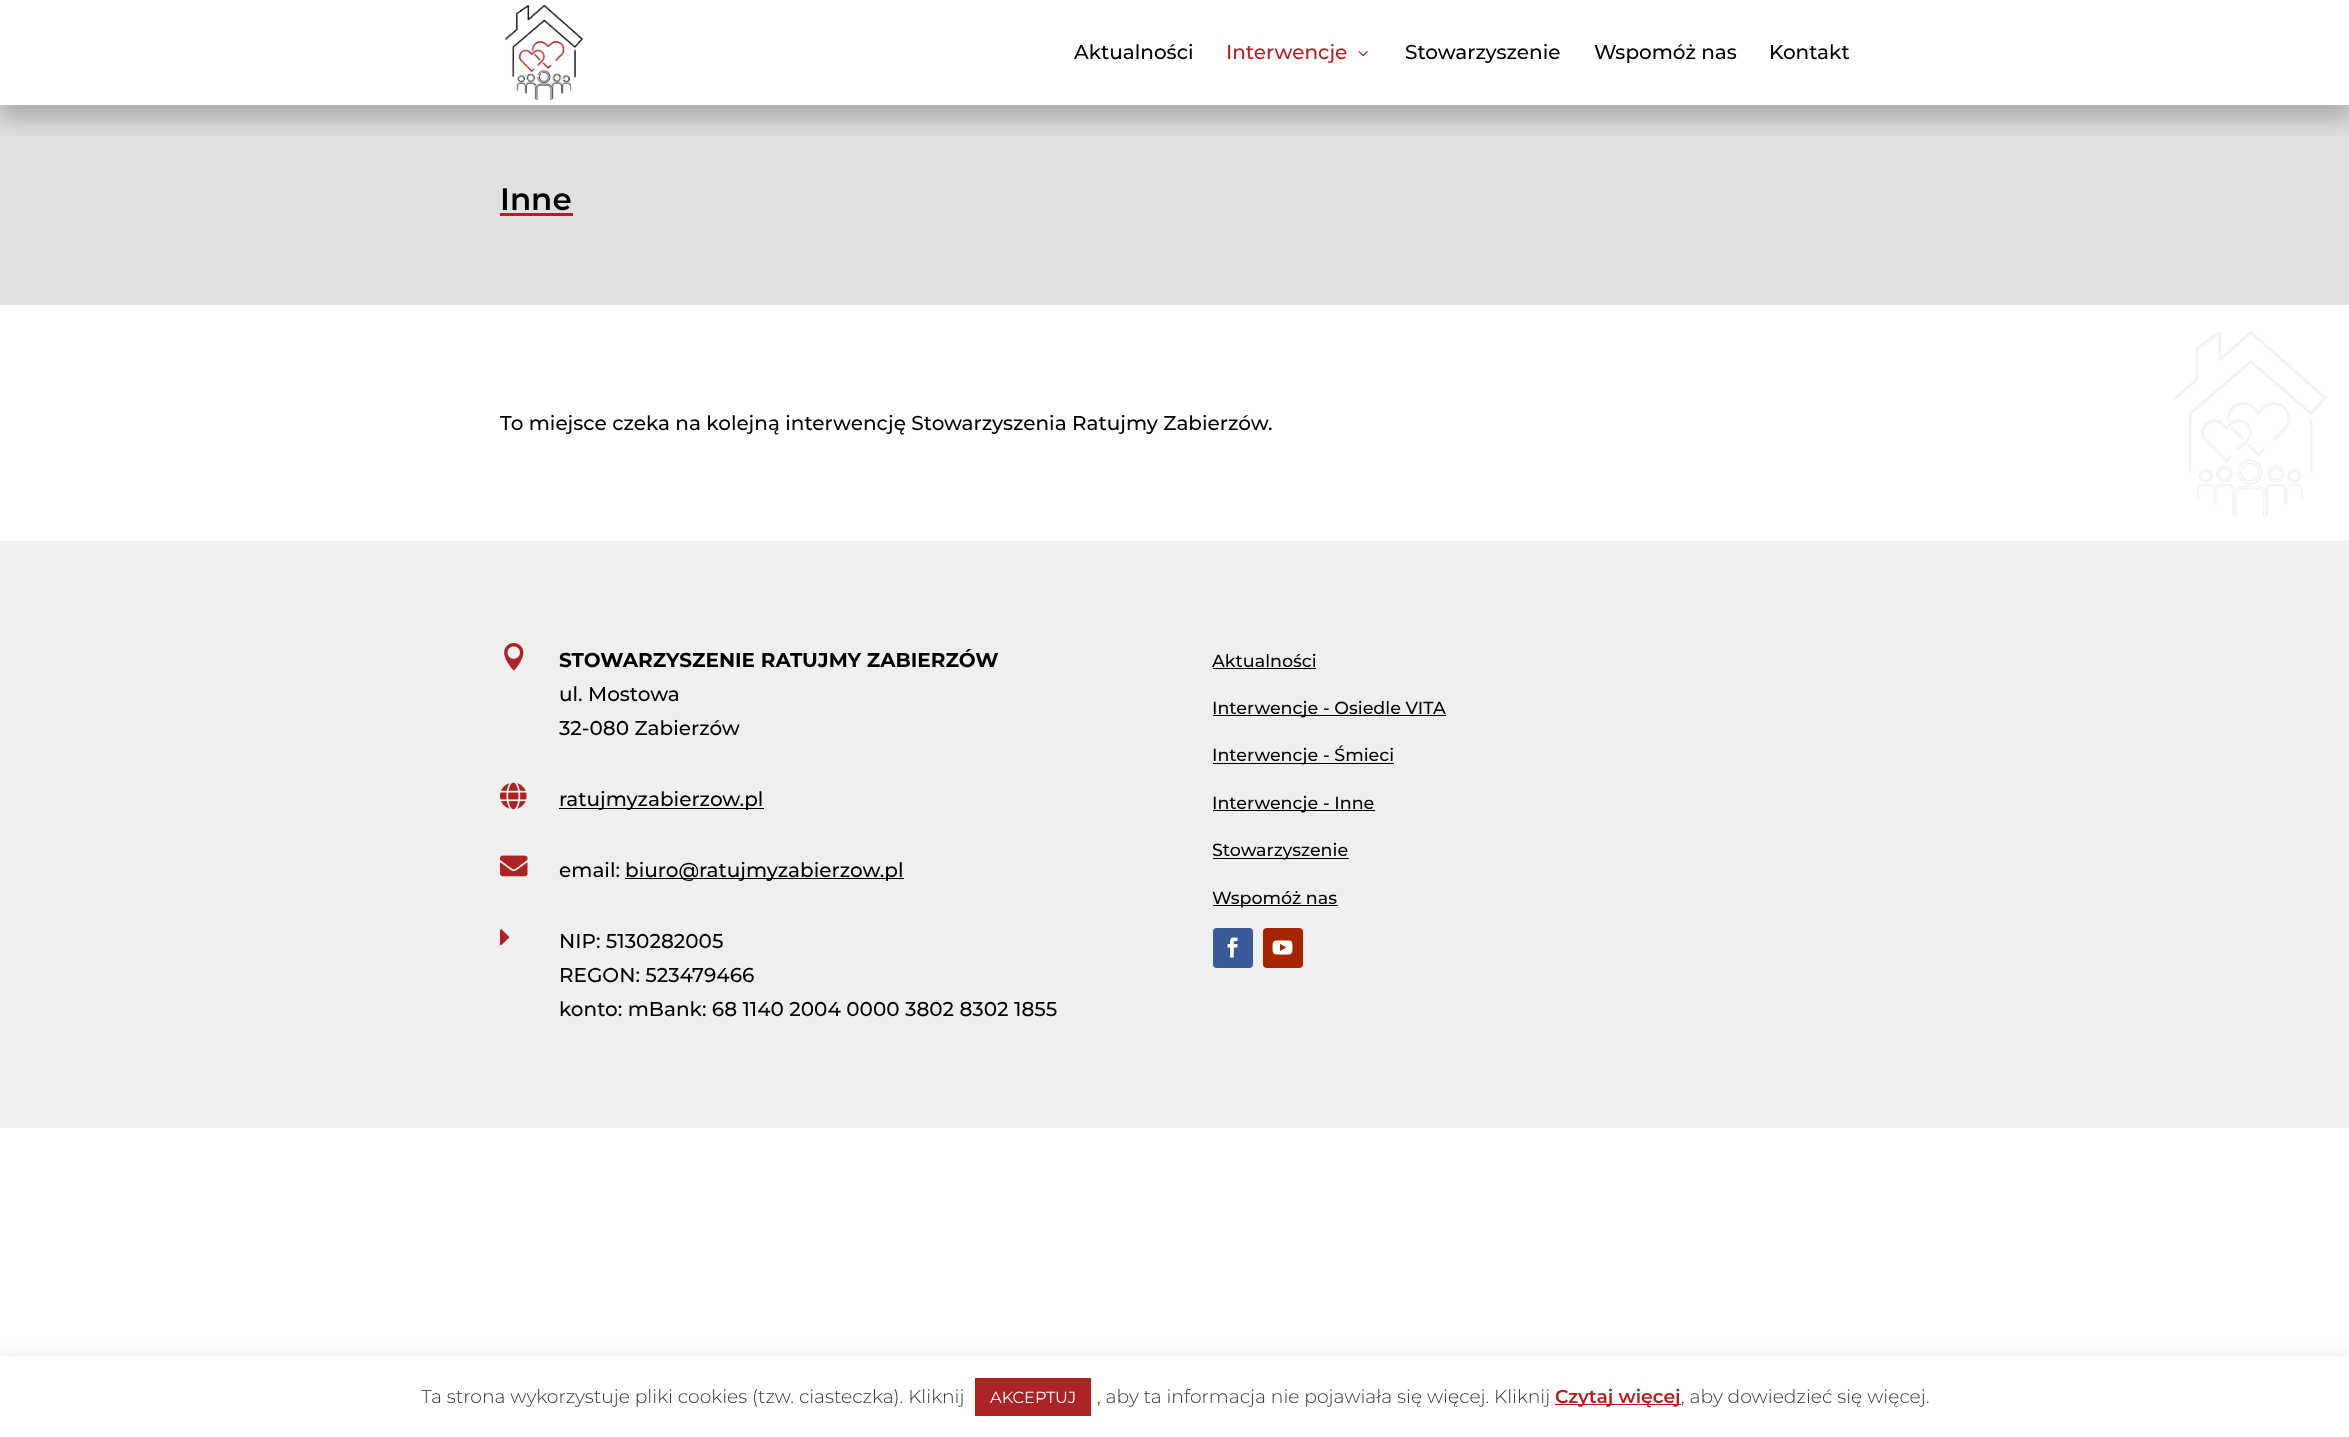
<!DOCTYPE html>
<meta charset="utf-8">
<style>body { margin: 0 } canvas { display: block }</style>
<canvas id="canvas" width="2349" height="1437"></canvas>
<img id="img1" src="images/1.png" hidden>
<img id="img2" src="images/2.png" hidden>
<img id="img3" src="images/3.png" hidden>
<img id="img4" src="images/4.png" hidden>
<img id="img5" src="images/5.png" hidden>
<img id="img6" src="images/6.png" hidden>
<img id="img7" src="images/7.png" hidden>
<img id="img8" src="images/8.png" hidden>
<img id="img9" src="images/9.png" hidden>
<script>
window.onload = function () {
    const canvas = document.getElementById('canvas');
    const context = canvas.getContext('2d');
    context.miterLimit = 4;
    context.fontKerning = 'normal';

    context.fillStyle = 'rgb(255, 255, 255)';
    context.fillRect(0, 0, 2349, 1437);
    context.fillStyle = 'rgb(224, 224, 224)';
    context.fillRect(0, 105, 2349, 200);
    context.save();
    context.beginPath();
    context.rect(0, 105, 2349, 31);
    context.clip();
    context.fillStyle = 'rgba(0, 0, 0, 0.24)';
    context.filter = 'blur(12.5px)';
    context.beginPath();
    context.rect(-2, 9, 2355, 110);
    context.fill();
    context.filter = 'none';
    context.restore();
    context.drawImage(document.getElementById('img1'), 505, 5, 78, 95);
    context.drawImage(document.getElementById('img2'), 1358, 51, 10, 6);
    context.fillStyle = 'rgb(173, 35, 35)';
    context.fillRect(500, 213, 73, 3);
    context.drawImage(document.getElementById('img3'), 2174, 331, 152, 187);
    context.fillStyle = 'rgb(239, 239, 239)';
    context.fillRect(0, 541, 2349, 587);
    context.drawImage(document.getElementById('img4'), 504, 643, 20, 28);
    context.drawImage(document.getElementById('img5'), 500, 782, 27, 28);
    context.fillStyle = 'rgb(0, 0, 0)';
    context.fillRect(559, 808, 205, 1);
    context.drawImage(document.getElementById('img6'), 500, 855, 28, 22);
    context.fillRect(625, 878, 279, 1);
    context.drawImage(document.getElementById('img7'), 500, 929, 10, 17);
    context.fillRect(1213, 668, 103, 1);
    context.fillRect(1213, 715, 233, 1);
    context.fillRect(1213, 763, 181, 1);
    context.fillRect(1213, 810, 162, 1);
    context.fillRect(1213, 858, 136, 1);
    context.fillRect(1213, 905, 125, 1);
    context.fillStyle = 'rgb(59, 89, 152)';
    context.beginPath();
    context.roundRect(1213, 928, 40, 40, 4);
    context.fill();
    context.drawImage(document.getElementById('img8'), 1227, 937, 11, 21);
    context.fillStyle = 'rgb(168, 36, 0)';
    context.beginPath();
    context.roundRect(1263, 928, 40, 40, 4);
    context.fill();
    context.drawImage(document.getElementById('img9'), 1272, 940, 21, 15);
    context.fillStyle = 'rgba(172, 171, 171, 0.3)';
    context.filter = 'blur(6px)';
    context.beginPath();
    context.rect(0, 1355, 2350, 81);
    context.fill();
    context.filter = 'none';
    context.fillStyle = 'rgb(255, 255, 255)';
    context.fillRect(0, 1356, 2349, 81);
    context.fillStyle = 'rgb(173, 35, 35)';
    context.fillRect(975, 1378, 116, 38);
    context.fillRect(1555, 1404, 126, 1);
    context.font = '100 20px Montserrat';
    context.fillStyle = 'rgb(0, 0, 0)';
    context.fillText('Aktualności', 1074, 59);
    context.fillStyle = 'rgb(173, 35, 35)';
    context.fillText('Interwencje', 1226, 59);
    context.fillStyle = 'rgb(0, 0, 0)';
    context.fillText('Stowarzyszenie', 1405, 59);
    context.fillText('Wspomóż nas', 1594, 59);
    context.fillText('Kontakt', 1769, 59);
    context.font = '100 31px "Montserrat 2"';
    context.fillText('Inne', 500, 210);
    context.font = '100 20px Montserrat';
    context.fillText('To miejsce czeka na kolejną interwencję Stowarzyszenia Ratujmy Zabierzów.', 500, 430);
    context.font = '100 20px "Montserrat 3"';
    context.fillText('STOWARZYSZENIE RATUJMY ZABIERZÓW', 559, 667);
    context.font = '100 20px Montserrat';
    context.fillText('ul. Mostowa', 559, 701);
    context.fillText('32-080 Zabierzów', 559, 735);
    context.fillText('ratujmyzabierzow.pl', 559, 806);
    context.fillText('email:', 559, 877);
    context.fillText('biuro@ratujmyzabierzow.pl', 625, 877);
    context.fillText('NIP: 5130282005', 559, 948);
    context.fillText('REGON: 523479466', 559, 982);
    context.fillText('konto: mBank: 68 1140 2004 0000 3802 8302 1855', 559, 1016);
    context.font = '100 17.5px Montserrat';
    context.fillText('Aktualności', 1212, 667);
    context.fillText('Interwencje - Osiedle VITA', 1212, 714);
    context.fillText('Interwencje - Śmieci', 1212, 761);
    context.fillText('Interwencje - Inne', 1212, 809);
    context.fillText('Stowarzyszenie', 1212, 856);
    context.fillText('Wspomóż nas', 1212, 904);
    context.font = '100 18.75px "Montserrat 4"';
    context.fillStyle = 'rgb(51, 51, 51)';
    context.fillText('Ta strona wykorzystuje pliki cookies (tzw. ciasteczka). Kliknij', 421, 1403);
    context.font = '100 16.25px "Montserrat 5"';
    context.fillStyle = 'rgb(255, 255, 255)';
    context.fillText('AKCEPTUJ', 990, 1403);
    context.font = '100 18.75px "Montserrat 4"';
    context.fillStyle = 'rgb(51, 51, 51)';
    context.fillText(', aby ta informacja nie pojawiała się więcej. Kliknij', 1097, 1403);
    context.font = '100 18.75px "Montserrat 2"';
    context.fillStyle = 'rgb(173, 35, 35)';
    context.fillText('Czytaj więcej', 1555, 1403);
    context.font = '100 18.75px "Montserrat 4"';
    context.fillStyle = 'rgb(51, 51, 51)';
    context.fillText(', aby dowiedzieć się więcej.', 1681, 1403);
};
</script>
